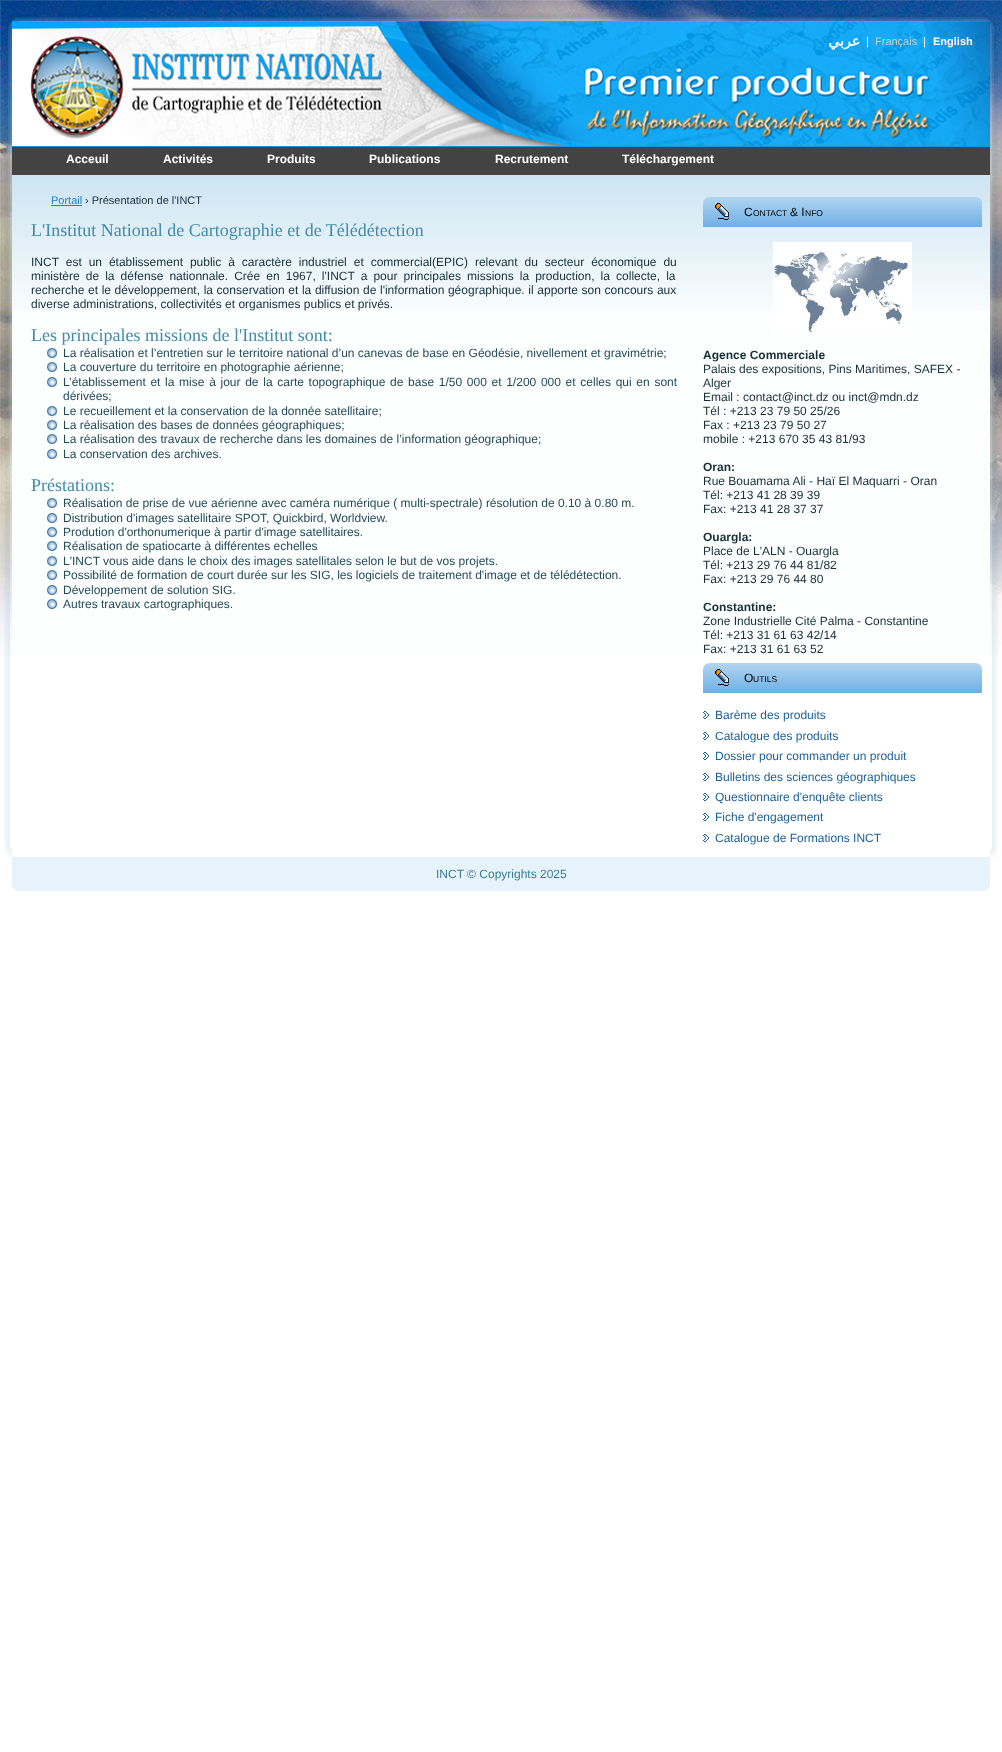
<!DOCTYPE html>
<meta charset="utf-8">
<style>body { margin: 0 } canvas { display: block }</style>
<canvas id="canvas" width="1002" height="1752"></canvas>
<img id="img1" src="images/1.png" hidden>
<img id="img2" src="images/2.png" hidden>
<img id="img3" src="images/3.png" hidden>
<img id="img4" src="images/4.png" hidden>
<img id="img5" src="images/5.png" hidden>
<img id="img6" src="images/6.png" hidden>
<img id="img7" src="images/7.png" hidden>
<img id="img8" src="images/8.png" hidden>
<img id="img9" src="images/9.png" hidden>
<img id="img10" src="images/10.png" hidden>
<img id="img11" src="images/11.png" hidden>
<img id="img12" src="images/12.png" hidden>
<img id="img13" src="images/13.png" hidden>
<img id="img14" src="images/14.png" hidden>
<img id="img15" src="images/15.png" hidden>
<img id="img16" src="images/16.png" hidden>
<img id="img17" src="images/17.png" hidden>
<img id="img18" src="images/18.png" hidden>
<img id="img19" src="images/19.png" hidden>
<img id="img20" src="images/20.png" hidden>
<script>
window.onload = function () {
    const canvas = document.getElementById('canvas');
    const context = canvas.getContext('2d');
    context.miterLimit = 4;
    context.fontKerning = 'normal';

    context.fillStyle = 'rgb(255, 255, 255)';
    context.fillRect(0, 0, 1002, 1752);
    context.drawImage(document.getElementById('img1'), 0, 0, 1002, 656);
    context.drawImage(document.getElementById('img2'), 5, 14, 35, 35);
    context.drawImage(document.getElementById('img3'), 40, 13, 922, 8);
    context.drawImage(document.getElementById('img4'), 962, 14, 35, 35);
    context.drawImage(document.getElementById('img5'), 4, 49, 8, 775);
    context.drawImage(document.getElementById('img6'), 13, 21, 977, 1);
    context.drawImage(document.getElementById('img7'), 12, 21, 978, 126);
    context.fillStyle = 'rgb(67, 67, 67)';
    context.fillRect(12, 147, 978, 28);
    context.fillStyle = 'rgb(253, 254, 254)';
    context.fillRect(12, 311, 978, 345);
    context.drawImage(document.getElementById('img8'), 12, 175, 978, 136);
    context.fillStyle = 'rgb(35, 126, 199)';
    context.fillRect(51, 205, 31, 1);
    context.drawImage(document.getElementById('img9'), 47, 348, 10, 10);
    context.drawImage(document.getElementById('img9'), 47, 362, 10, 10);
    context.drawImage(document.getElementById('img9'), 47, 377, 10, 10);
    context.drawImage(document.getElementById('img9'), 47, 406, 10, 10);
    context.drawImage(document.getElementById('img9'), 47, 420, 10, 10);
    context.drawImage(document.getElementById('img9'), 47, 434, 10, 10);
    context.drawImage(document.getElementById('img9'), 47, 449, 10, 10);
    context.drawImage(document.getElementById('img9'), 47, 498, 10, 10);
    context.drawImage(document.getElementById('img9'), 47, 513, 10, 10);
    context.drawImage(document.getElementById('img9'), 47, 527, 10, 10);
    context.drawImage(document.getElementById('img9'), 47, 541, 10, 10);
    context.drawImage(document.getElementById('img9'), 47, 556, 10, 10);
    context.drawImage(document.getElementById('img9'), 47, 570, 10, 10);
    context.drawImage(document.getElementById('img9'), 47, 585, 10, 10);
    context.drawImage(document.getElementById('img9'), 47, 599, 10, 10);
    context.drawImage(document.getElementById('img10'), 703, 197, 273, 30);
    context.drawImage(document.getElementById('img11'), 976, 197, 6, 30);
    context.drawImage(document.getElementById('img12'), 715, 203, 14, 17);
    context.drawImage(document.getElementById('img13'), 773, 242, 139, 91);
    context.drawImage(document.getElementById('img14'), 703, 663, 273, 30);
    context.drawImage(document.getElementById('img15'), 976, 663, 6, 30);
    context.drawImage(document.getElementById('img12'), 715, 669, 14, 17);
    context.drawImage(document.getElementById('img16'), 703, 711, 6, 8);
    context.drawImage(document.getElementById('img16'), 703, 732, 6, 8);
    context.drawImage(document.getElementById('img16'), 703, 752, 6, 8);
    context.drawImage(document.getElementById('img16'), 703, 773, 6, 8);
    context.drawImage(document.getElementById('img16'), 703, 793, 6, 8);
    context.drawImage(document.getElementById('img16'), 703, 813, 6, 8);
    context.drawImage(document.getElementById('img16'), 703, 834, 6, 8);
    context.drawImage(document.getElementById('img17'), 12, 857, 978, 34);
    context.drawImage(document.getElementById('img18'), 990, 49, 8, 775);
    context.drawImage(document.getElementById('img19'), 4, 824, 8, 33);
    context.drawImage(document.getElementById('img20'), 990, 824, 8, 34);
    context.direction = 'rtl';
    context.font = 'bold 14px DejaVu Sans';
    context.fillStyle = 'rgb(255, 255, 255)';
    context.fillText('عربي', 860, 46);
    context.direction = 'ltr';
    context.font = '11px Liberation Sans';
    context.fillText('|', 866, 45);
    context.fillStyle = 'rgb(204, 204, 204)';
    context.fillText('Français', 875, 45);
    context.fillStyle = 'rgb(255, 255, 255)';
    context.fillText('|', 923, 45);
    context.font = 'bold 11px Liberation Sans';
    context.fillText('English', 933, 45);
    context.font = 'bold 12px Liberation Sans';
    context.fillText('Acceuil', 66, 163);
    context.fillText('Activités', 163, 163);
    context.fillText('Produits', 267, 163);
    context.fillText('Publications', 369, 163);
    context.fillText('Recrutement', 495, 163);
    context.fillText('Téléchargement', 622, 163);
    context.font = '11px Liberation Sans';
    context.fillStyle = 'rgb(35, 126, 199)';
    context.fillText('Portail', 51, 204);
    context.fillStyle = 'rgb(23, 48, 58)';
    context.fillText('› Présentation de l\'INCT', 85, 204);
    context.font = '18px Liberation Serif';
    context.fillStyle = 'rgb(67, 139, 168)';
    context.fillText('L\'Institut National de Cartographie et de Télédétection', 31, 236);
    context.wordSpacing = '3.6px';
    context.font = '12px Liberation Sans';
    context.fillStyle = 'rgb(23, 48, 58)';
    context.fillText('INCT est un établissement public à caractère industriel et commercial(EPIC) relevant du secteur économique du', 31, 266);
    context.wordSpacing = '2.75px';
    context.fillText('ministère de la défense nationnale. Crée en 1967, l\'INCT a pour principales missions la production, la collecte, la', 31, 280);
    context.wordSpacing = '0.3px';
    context.fillText('recherche et le développement, la conservation et la diffusion de l\'information géographique. il apporte son concours aux', 31, 294);
    context.wordSpacing = '0px';
    context.fillText('diverse administrations, collectivités et organismes publics et privés.', 31, 308);
    context.font = '18px Liberation Serif';
    context.fillStyle = 'rgb(67, 139, 168)';
    context.fillText('Les principales missions de l\'Institut sont:', 31, 341);
    context.font = '12px Liberation Sans';
    context.fillStyle = 'rgb(36, 76, 91)';
    context.fillText('La réalisation et l’entretien sur le territoire national d’un canevas de base en Géodésie, nivellement et gravimétrie;', 63, 357);
    context.fillText('La couverture du territoire en photographie aérienne;', 63, 371);
    context.wordSpacing = '1.35px';
    context.fillText('L’établissement et la mise à jour de la carte topographique de base 1/50 000 et 1/200 000 et celles qui en sont', 63, 386);
    context.wordSpacing = '0px';
    context.fillText('dérivées;', 63, 400);
    context.fillText('Le recueillement et la conservation de la donnée satellitaire;', 63, 415);
    context.fillText('La réalisation des bases de données géographiques;', 63, 429);
    context.fillText('La réalisation des travaux de recherche dans les domaines de l’information géographique;', 63, 443);
    context.fillText('La conservation des archives.', 63, 458);
    context.font = '18px Liberation Serif';
    context.fillStyle = 'rgb(67, 139, 168)';
    context.fillText('Préstations:', 31, 491);
    context.font = '12px Liberation Sans';
    context.fillStyle = 'rgb(36, 76, 91)';
    context.fillText('Réalisation de prise de vue aérienne avec caméra numérique ( multi-spectrale) résolution de 0.10 à 0.80 m.', 63, 507);
    context.fillText('Distribution d\'images satellitaire SPOT, Quickbird, Worldview.', 63, 522);
    context.fillText('Prodution d\'orthonumerique à partir d\'image satellitaires.', 63, 536);
    context.fillText('Réalisation de spatiocarte à différentes echelles', 63, 550);
    context.fillText('L\'INCT vous aide dans le choix des images satellitales selon le but de vos projets.', 63, 565);
    context.fillText('Possibilité de formation de court durée sur les SIG, les logiciels de traitement d\'image et de télédétection.', 63, 579);
    context.fillText('Développement de solution SIG.', 63, 594);
    context.fillText('Autres travaux cartographiques.', 63, 608);
    context.fillStyle = 'rgb(0, 0, 0)';
    context.fillText('C', 744, 216);
    context.font = '8.5px Liberation Sans';
    context.fillText('ONTACT', 753, 216);
    context.font = '12px Liberation Sans';
    context.fillText('& I', 790, 216);
    context.font = '8.5px Liberation Sans';
    context.fillText('NFO', 805, 216);
    context.font = 'bold 12px Liberation Sans';
    context.fillStyle = 'rgb(23, 48, 58)';
    context.fillText('Agence Commerciale', 703, 359);
    context.font = '12px Liberation Sans';
    context.fillText('Palais des expositions, Pins Maritimes, SAFEX -', 703, 373);
    context.fillText('Alger', 703, 387);
    context.fillText('Email : contact@inct.dz ou inct@mdn.dz', 703, 401);
    context.fillText('Tél : +213 23 79 50 25/26', 703, 415);
    context.fillText('Fax : +213 23 79 50 27', 703, 429);
    context.fillText('mobile : +213 670 35 43 81/93', 703, 443);
    context.font = 'bold 12px Liberation Sans';
    context.fillText('Oran:', 703, 471);
    context.font = '12px Liberation Sans';
    context.fillText('Rue Bouamama Ali - Haï El Maquarri - Oran', 703, 485);
    context.fillText('Tél: +213 41 28 39 39', 703, 499);
    context.fillText('Fax: +213 41 28 37 37', 703, 513);
    context.font = 'bold 12px Liberation Sans';
    context.fillText('Ouargla:', 703, 541);
    context.font = '12px Liberation Sans';
    context.fillText('Place de L\'ALN - Ouargla', 703, 555);
    context.fillText('Tél: +213 29 76 44 81/82', 703, 569);
    context.fillText('Fax: +213 29 76 44 80', 703, 583);
    context.font = 'bold 12px Liberation Sans';
    context.fillText('Constantine:', 703, 611);
    context.font = '12px Liberation Sans';
    context.fillText('Zone Industrielle Cité Palma - Constantine', 703, 625);
    context.fillText('Tél: +213 31 61 63 42/14', 703, 639);
    context.fillText('Fax: +213 31 61 63 52', 703, 653);
    context.fillStyle = 'rgb(0, 0, 0)';
    context.fillText('O', 744, 682);
    context.font = '8.5px Liberation Sans';
    context.fillText('UTILS', 753, 682);
    context.font = '12px Liberation Sans';
    context.fillStyle = 'rgb(27, 95, 152)';
    context.fillText('Barème des produits', 715, 719);
    context.fillText('Catalogue des produits', 715, 740);
    context.fillText('Dossier pour commander un produit', 715, 760);
    context.fillText('Bulletins des sciences géographiques', 715, 781);
    context.fillText('Questionnaire d\'enquête clients', 715, 801);
    context.fillText('Fiche d\'engagement', 715, 821);
    context.fillText('Catalogue de Formations INCT', 715, 842);
    context.fillStyle = 'rgb(60, 124, 150)';
    context.fillText('INCT © Copyrights 2025', 436, 878);
};
</script>
